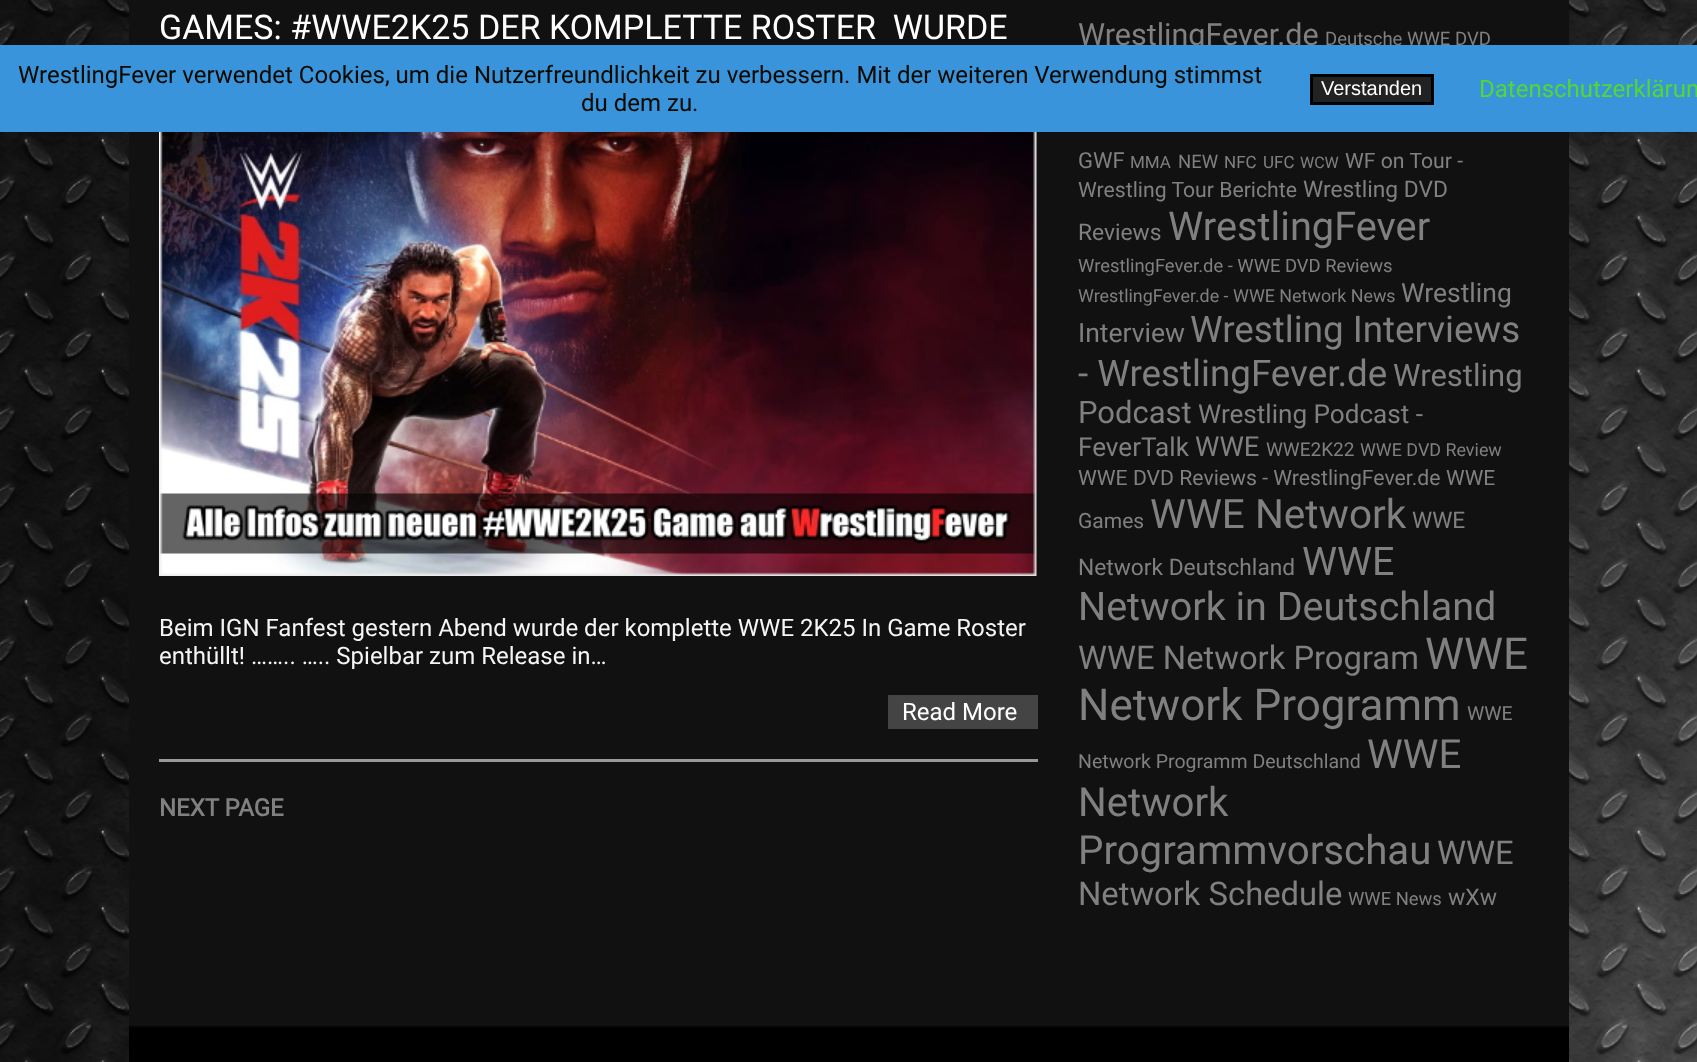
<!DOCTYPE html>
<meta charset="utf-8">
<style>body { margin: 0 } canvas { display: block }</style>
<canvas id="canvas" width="1697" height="1062"></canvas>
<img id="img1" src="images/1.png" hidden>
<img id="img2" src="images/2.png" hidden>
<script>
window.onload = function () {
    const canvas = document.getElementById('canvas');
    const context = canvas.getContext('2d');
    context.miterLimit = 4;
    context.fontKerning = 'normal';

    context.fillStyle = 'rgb(255, 255, 255)';
    context.fillRect(0, 0, 1697, 1062);
    context.drawImage(document.getElementById('img1'), 0, 0, 1697, 1062);
    context.fillStyle = 'rgb(17, 17, 17)';
    context.fillRect(129, 0, 1440, 1026);
    context.drawImage(document.getElementById('img2'), 159, 132, 878, 444);
    context.fillStyle = 'rgb(68, 68, 68)';
    context.fillRect(888, 695, 150, 34);
    context.fillStyle = 'rgb(153, 153, 153)';
    context.fillRect(159, 759, 879, 3);
    context.fillStyle = 'rgb(0, 0, 0)';
    context.fillRect(129, 1028, 1440, 34);
    context.fillStyle = 'rgb(5, 5, 5)';
    context.fillRect(129, 1026, 1440, 2);
    context.font = '34px Roboto';
    context.fillStyle = 'rgb(255, 255, 255)';
    context.fillText('GAMES: #WWE2K25 DER KOMPLETTE ROSTER  WURDE', 159, 39);
    context.font = '24px Roboto';
    context.fillStyle = 'rgb(245, 245, 245)';
    context.fillText('Beim IGN Fanfest gestern Abend wurde der komplette WWE 2K25 In Game Roster', 159, 636);
    context.fillText('enthüllt! …….. ….. Spielbar zum Release in…', 159, 664);
    context.fillStyle = 'rgb(255, 255, 255)';
    context.fillText('Read More', 902, 720);
    context.font = 'bold 24px Roboto';
    context.fillStyle = 'rgb(128, 128, 128)';
    context.fillText('NEXT PAGE', 159, 816);
    context.font = '30.5px Roboto';
    context.fillText('WrestlingFever.de', 1078, 45);
    context.font = '18.5px Roboto';
    context.fillText('Deutsche WWE DVD', 1325, 45);
    context.font = '22px Roboto';
    context.fillText('GWF', 1078, 168);
    context.font = '17px Roboto';
    context.fillText('MMA', 1130, 168);
    context.font = '18.5px Roboto';
    context.fillText('NEW', 1178, 168);
    context.font = '17px Roboto';
    context.fillText('NFC', 1224, 168);
    context.fillText('UFC', 1263, 168);
    context.font = '16px Roboto';
    context.fillText('WCW', 1300, 168);
    context.font = '21.2px Roboto';
    context.fillText('WF on Tour -', 1345, 168);
    context.fillText('Wrestling Tour Berichte', 1078, 197);
    context.font = '22.75px Roboto';
    context.fillText('Wrestling DVD', 1303, 197);
    context.fillText('Reviews', 1078, 240);
    context.font = '39.75px Roboto';
    context.fillText('WrestlingFever', 1168, 240);
    context.font = '18.4px Roboto';
    context.fillText('WrestlingFever.de - WWE DVD Reviews', 1078, 272);
    context.font = '17.9px Roboto';
    context.fillText('WrestlingFever.de - WWE Network News', 1078, 302);
    context.font = '26.5px Roboto';
    context.fillText('Wrestling', 1401, 302);
    context.fillText('Interview', 1078, 342);
    context.font = '36.75px Roboto';
    context.fillText('Wrestling Interviews', 1190, 342);
    context.fillText('- WrestlingFever.de', 1078, 386);
    context.font = '31px Roboto';
    context.fillText('Wrestling', 1393, 386);
    context.fillText('Podcast', 1078, 423);
    context.font = '26.1px Roboto';
    context.fillText('Wrestling Podcast -', 1198, 423);
    context.fillText('FeverTalk', 1078, 456);
    context.font = '27.5px Roboto';
    context.fillText('WWE', 1195, 456);
    context.font = '19px Roboto';
    context.fillText('WWE2K22', 1266, 456);
    context.font = '17.9px Roboto';
    context.fillText('WWE DVD Review', 1360, 456);
    context.font = '21.2px Roboto';
    context.fillText('WWE DVD Reviews - WrestlingFever.de', 1078, 485);
    context.font = '21px Roboto';
    context.fillText('WWE', 1446, 485);
    context.fillText('Games', 1078, 528);
    context.font = '40.5px Roboto';
    context.fillText('WWE Network', 1150, 528);
    context.font = '22.75px Roboto';
    context.fillText('WWE', 1412, 528);
    context.fillText('Network Deutschland', 1078, 575);
    context.font = '39.5px Roboto';
    context.fillText('WWE', 1302, 575);
    context.fillText('Network in Deutschland', 1078, 620);
    context.font = '32.75px Roboto';
    context.fillText('WWE Network Program', 1078, 669);
    context.font = '44px Roboto';
    context.fillText('WWE', 1425, 669);
    context.fillText('Network Programm', 1078, 720);
    context.font = '19.5px Roboto';
    context.fillText('WWE', 1467, 720);
    context.fillText('Network Programm Deutschland', 1078, 768);
    context.font = '40.25px Roboto';
    context.fillText('WWE', 1367, 768);
    context.fillText('Network', 1078, 816);
    context.fillText('Programmvorschau', 1078, 864);
    context.font = '32.75px Roboto';
    context.fillText('WWE', 1437, 864);
    context.fillText('Network Schedule', 1078, 905);
    context.font = '18.4px Roboto';
    context.fillText('WWE News', 1348, 905);
    context.font = '23px Roboto';
    context.fillText('wXw', 1448, 905);
    context.fillStyle = 'rgb(57, 148, 219)';
    context.fillRect(0, 45, 1697, 87);
    context.font = '24px Roboto';
    context.fillStyle = 'rgb(10, 9, 0)';
    context.fillText('WrestlingFever verwendet Cookies, um die Nutzerfreundlichkeit zu verbessern. Mit der weiteren Verwendung stimmst', 18, 83);
    context.fillText('du dem zu.', 581, 111);
    context.fillStyle = 'rgb(34, 34, 34)';
    context.beginPath();
    context.rect(1311.5, 75.5, 121, 28);
    context.fill();
    context.strokeStyle = 'rgb(0, 0, 0)';
    context.lineWidth = 3;
    context.stroke();
    context.font = '20px Liberation Sans';
    context.fillStyle = 'rgb(255, 255, 255)';
    context.fillText('Verstanden', 1321, 95);
    context.font = '24px Roboto';
    context.fillStyle = 'rgb(83, 216, 49)';
    context.fillText('Datenschutzerklärun', 1479, 97);
};
</script>
